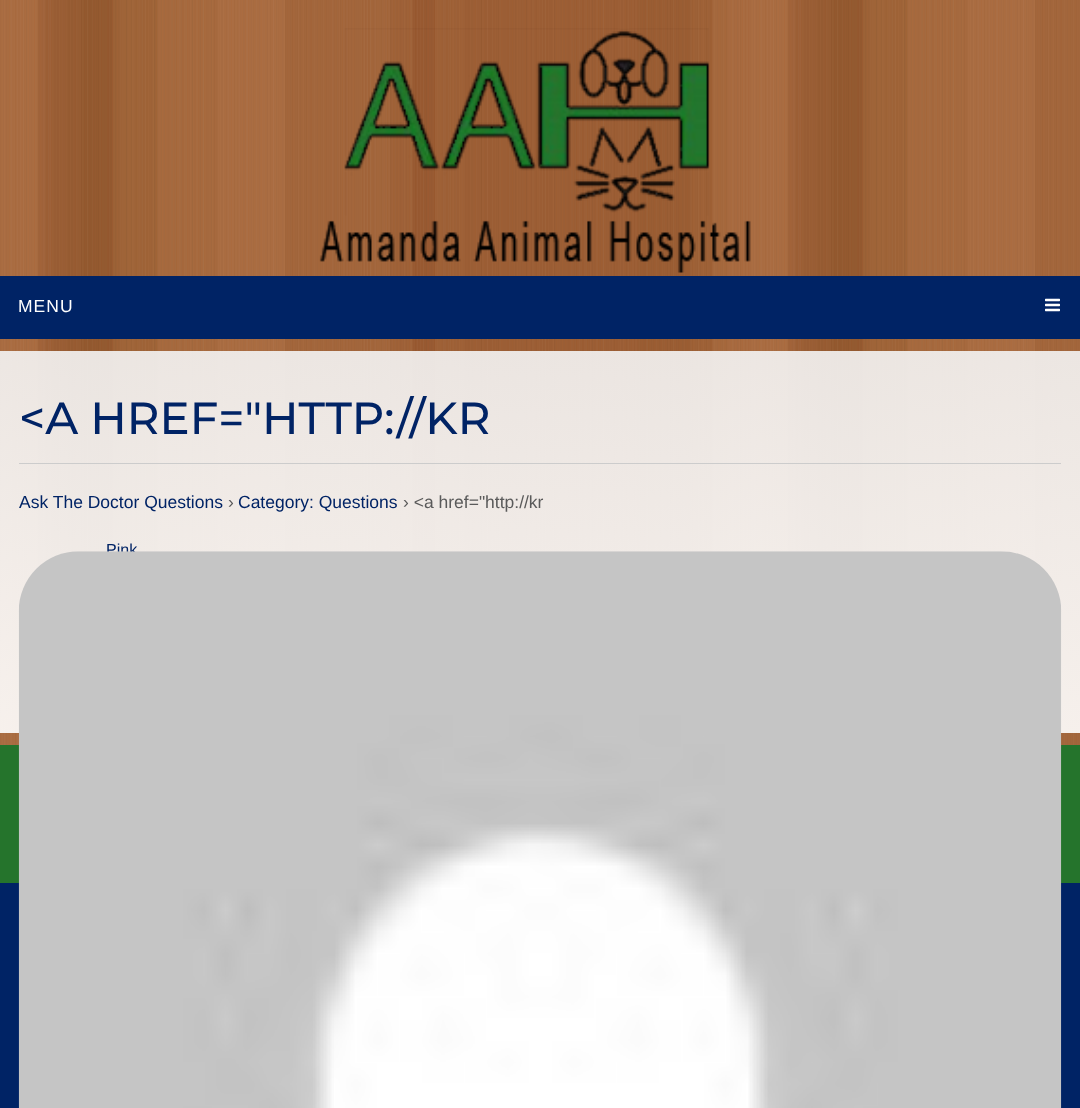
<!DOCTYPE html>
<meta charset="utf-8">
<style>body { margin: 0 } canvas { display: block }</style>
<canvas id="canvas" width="1080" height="1108"></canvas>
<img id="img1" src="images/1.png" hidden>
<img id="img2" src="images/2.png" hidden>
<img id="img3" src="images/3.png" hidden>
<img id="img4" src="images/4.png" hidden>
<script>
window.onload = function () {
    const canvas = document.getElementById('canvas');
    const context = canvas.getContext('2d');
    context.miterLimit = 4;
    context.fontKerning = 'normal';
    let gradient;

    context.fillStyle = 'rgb(173, 107, 61)';
    context.fillRect(0, 0, 1080, 1108);
    context.drawImage(document.getElementById('img1'), 0, 0, 1080, 745);
    context.drawImage(document.getElementById('img2'), 319, 28, 432, 245);
    context.fillStyle = 'rgb(0, 35, 101)';
    context.fillRect(0, 276, 1080, 63);
    context.drawImage(document.getElementById('img3'), 1045, 298, 15, 14);
    gradient = context.createLinearGradient(540, 351, 540, 733);
    gradient.addColorStop(0, 'rgba(244, 244, 244, 0.9)');
    gradient.addColorStop(1, 'rgba(255, 255, 255, 0.9)');
    context.fillStyle = gradient;
    context.fillRect(0, 351, 1080, 382);
    context.fillStyle = 'rgb(204, 204, 204)';
    context.fillRect(19, 463, 1042, 1);
    context.fillStyle = 'rgb(37, 116, 44)';
    context.fillRect(0, 745, 1080, 138);
    context.fillStyle = 'rgb(0, 35, 101)';
    context.fillRect(0, 883, 1080, 225);
    context.letterSpacing = '1px';
    context.font = '17.5px Liberation Sans';
    context.fillStyle = 'rgb(255, 255, 255)';
    context.fillText('MENU', 18, 312);
    context.letterSpacing = '0px';
    context.font = '500 45px Montserrat';
    context.fillStyle = 'rgb(0, 35, 101)';
    context.fillText('<A HREF="HTTP://KR', 19, 434);
    context.font = '17.5px Liberation Sans';
    context.fillText('Ask The Doctor Questions', 19, 508);
    context.fillStyle = 'rgb(90, 90, 90)';
    context.fillText('›', 228, 508);
    context.fillStyle = 'rgb(0, 35, 101)';
    context.fillText('Category: Questions', 238, 508);
    context.fillStyle = 'rgb(90, 90, 90)';
    context.fillText('› <a href="http://kr', 403, 508);
    context.font = '16px Liberation Sans';
    context.fillStyle = 'rgb(0, 35, 101)';
    context.fillText('Pink', 106, 555);
    context.drawImage(document.getElementById('img4'), 18, 551, 1044, 557);
};
</script>
